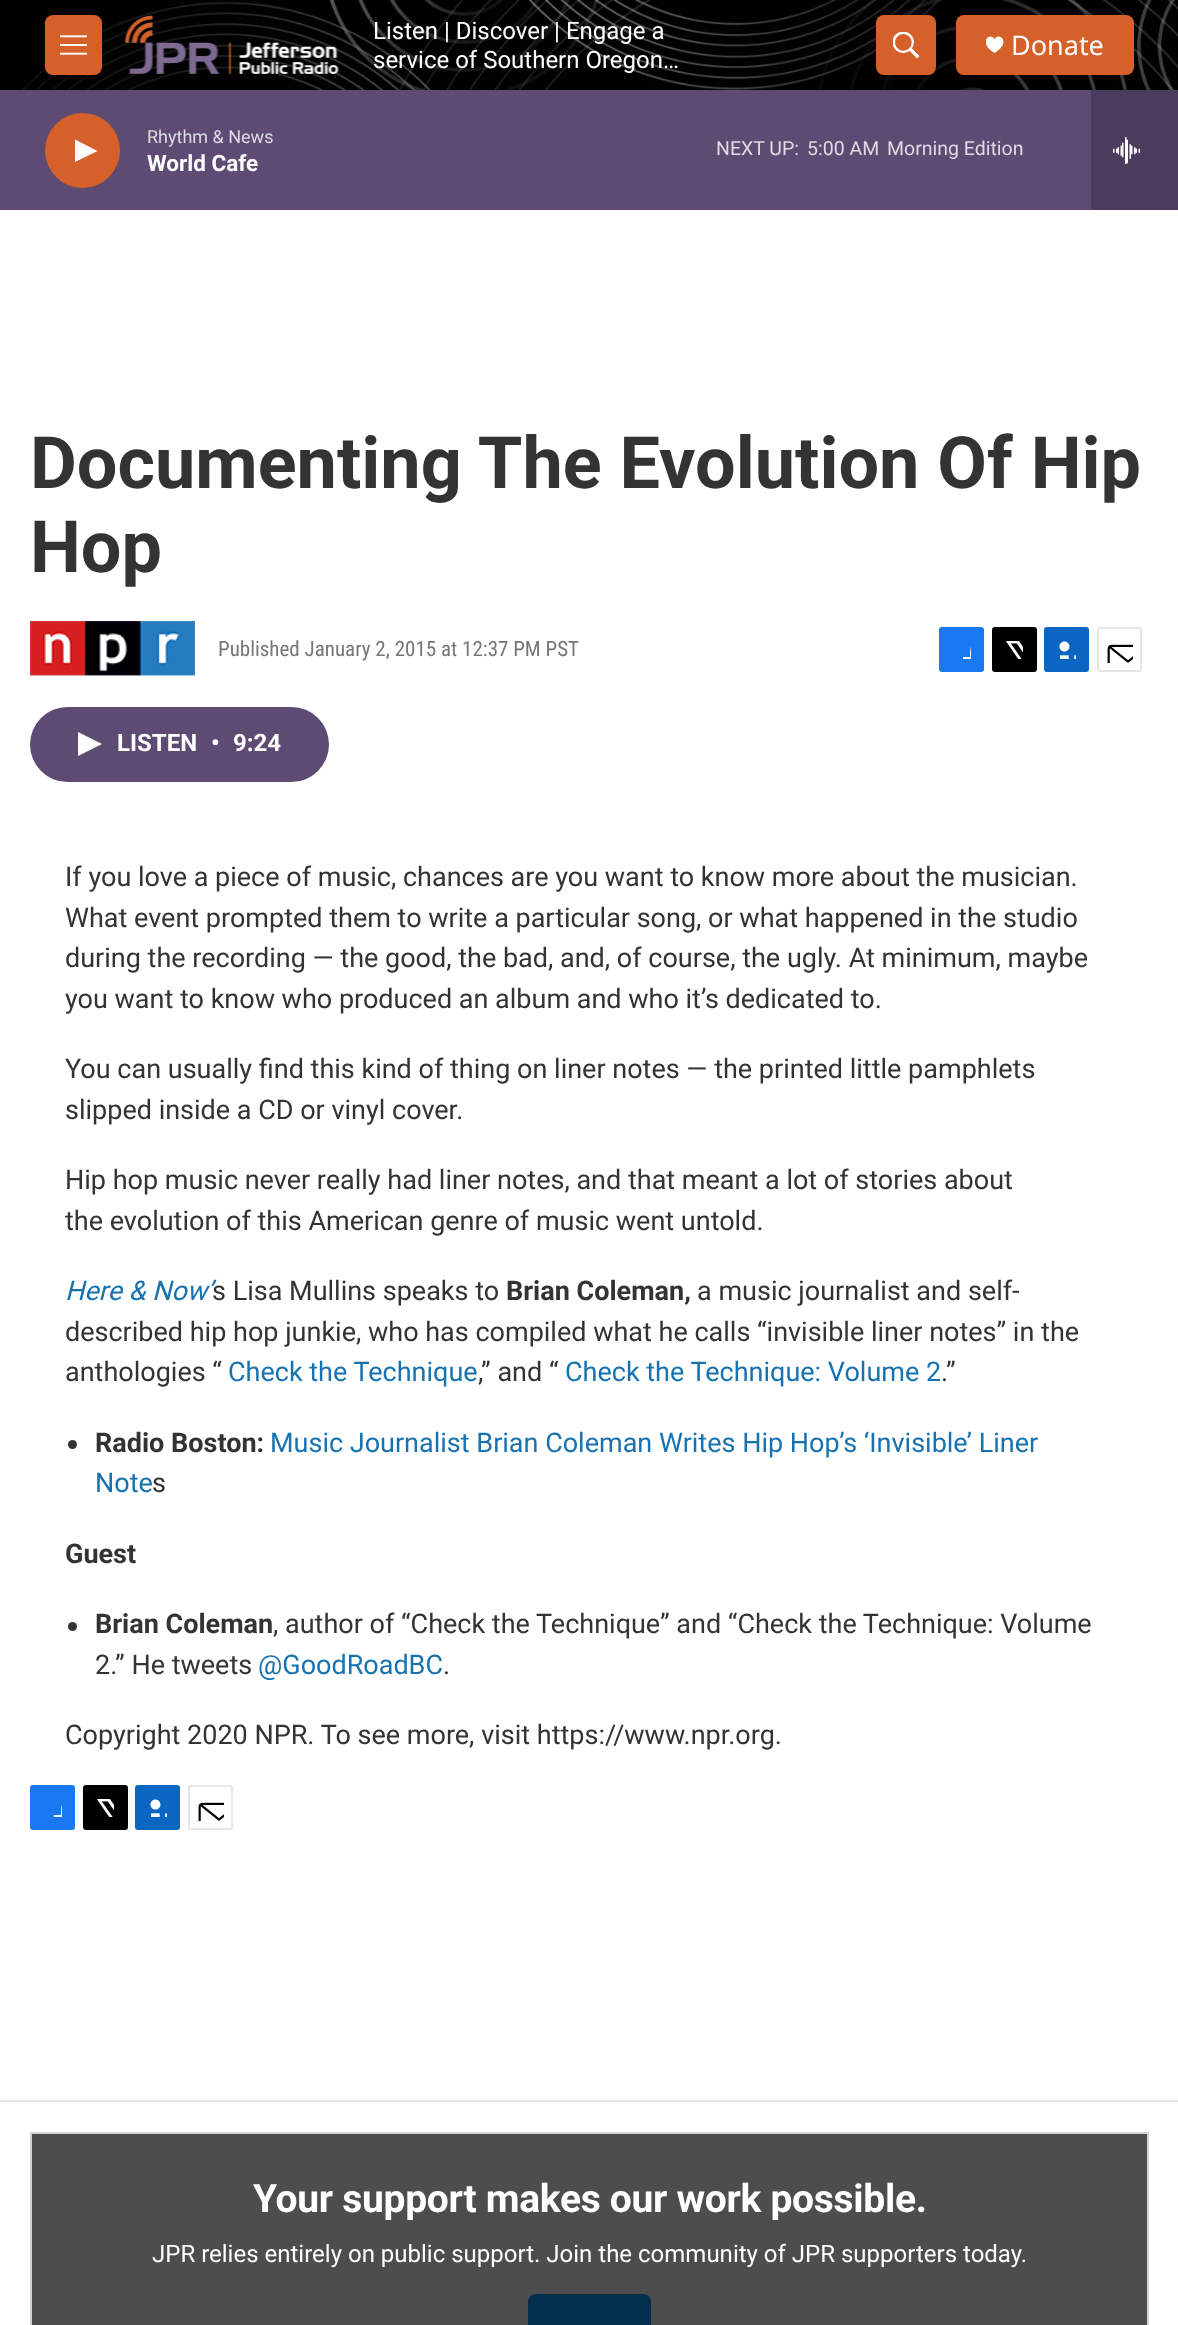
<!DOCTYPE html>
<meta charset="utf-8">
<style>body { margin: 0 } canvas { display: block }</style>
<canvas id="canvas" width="1178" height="2325"></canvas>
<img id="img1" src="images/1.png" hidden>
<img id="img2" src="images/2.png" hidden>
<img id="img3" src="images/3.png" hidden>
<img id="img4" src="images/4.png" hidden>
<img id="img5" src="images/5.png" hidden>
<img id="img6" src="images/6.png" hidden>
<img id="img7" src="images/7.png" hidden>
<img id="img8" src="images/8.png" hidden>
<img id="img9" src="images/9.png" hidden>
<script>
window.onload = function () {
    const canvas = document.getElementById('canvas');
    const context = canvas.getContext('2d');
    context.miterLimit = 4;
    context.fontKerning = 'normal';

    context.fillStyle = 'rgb(255, 255, 255)';
    context.fillRect(0, 0, 1178, 2325);
    context.drawImage(document.getElementById('img1'), 0, 0, 1178, 90);
    context.fillStyle = 'rgb(213, 96, 42)';
    context.beginPath();
    context.roundRect(45, 15, 57, 60, 8);
    context.fill();
    context.drawImage(document.getElementById('img2'), 60, 35, 27, 20);
    context.drawImage(document.getElementById('img3'), 124, 15, 215, 60);
    context.beginPath();
    context.roundRect(876, 15, 60, 60, 8);
    context.fill();
    context.drawImage(document.getElementById('img4'), 893, 32, 27, 27);
    context.beginPath();
    context.roundRect(956, 15, 178, 60, 8);
    context.fill();
    context.save();
    context.beginPath();
    context.rect(986, 36, 18, 18);
    context.clip();
    context.fillStyle = 'rgb(255, 255, 255)';
    context.beginPath();
    context.moveTo(994.5, 39.5);
    context.bezierCurveTo(991.5, 31.5, 976, 41.5, 994.5, 53);
    context.bezierCurveTo(1013, 41.5, 997.5, 31.5, 994.5, 39.5);
    context.closePath();
    context.fill();
    context.restore();
    context.fillStyle = 'rgb(93, 75, 115)';
    context.fillRect(0, 90, 1091, 120);
    context.fillStyle = 'rgb(213, 96, 42)';
    context.beginPath();
    context.arc(82.5, 150.5, 37.5, 0, 2 * Math.PI);
    context.fill();
    context.fillStyle = 'rgb(255, 255, 255)';
    context.beginPath();
    context.moveTo(75, 139.5);
    context.lineTo(97.5, 151);
    context.lineTo(75, 162);
    context.closePath();
    context.fill();
    context.fillStyle = 'rgb(74, 60, 92)';
    context.fillRect(1091, 90, 87, 120);
    context.drawImage(document.getElementById('img5'), 1113, 137, 27, 27);
    context.drawImage(document.getElementById('img6'), 30, 621, 165, 56);
    context.fillStyle = 'rgb(23, 120, 242)';
    context.beginPath();
    context.roundRect(939, 627, 45, 45, 3);
    context.fill();
    context.save();
    context.beginPath();
    context.rect(953, 641, 18, 18);
    context.clip();
    context.fillStyle = 'rgb(255, 255, 255)';
    context.beginPath();
    context.moveTo(977, 672);
    context.lineTo(970, 672);
    context.lineTo(970, 665);
    context.lineTo(963, 665);
    context.lineTo(963, 657);
    context.lineTo(970, 657);
    context.bezierCurveTo(970, 645.5, 971, 639.5, 984, 641);
    context.lineTo(984, 648);
    context.bezierCurveTo(976, 648, 977, 650.5, 977, 657);
    context.lineTo(984, 657);
    context.lineTo(983, 665);
    context.lineTo(977, 665);
    context.closePath();
    context.fill();
    context.restore();
    context.fillStyle = 'rgb(0, 0, 0)';
    context.beginPath();
    context.roundRect(992, 627, 45, 45, 3);
    context.fill();
    context.drawImage(document.getElementById('img7'), 1006, 641, 17, 18);
    context.fillStyle = 'rgb(10, 102, 193)';
    context.beginPath();
    context.roundRect(1044, 627, 45, 45, 3);
    context.fill();
    context.drawImage(document.getElementById('img8'), 1059, 641, 17, 18);
    context.beginPath();
    context.roundRect(1098, 628, 43, 43, 2);
    context.strokeStyle = 'rgb(230, 230, 230)';
    context.lineWidth = 2;
    context.stroke();
    context.drawImage(document.getElementById('img9'), 1107, 644, 26, 19);
    context.fillStyle = 'rgb(93, 75, 115)';
    context.beginPath();
    context.roundRect(30, 707, 299, 75, 37.5);
    context.fill();
    context.fillStyle = 'rgb(255, 255, 255)';
    context.beginPath();
    context.moveTo(78, 732);
    context.lineTo(102, 744);
    context.lineTo(78, 756);
    context.closePath();
    context.fill();
    context.fillStyle = 'rgb(51, 51, 51)';
    context.beginPath();
    context.arc(72.5, 1444.5, 4.5, 0, 2 * Math.PI);
    context.fill();
    context.beginPath();
    context.arc(72.5, 1626.5, 4.5, 0, 2 * Math.PI);
    context.fill();
    context.fillStyle = 'rgb(23, 120, 242)';
    context.beginPath();
    context.roundRect(30, 1785, 45, 45, 3);
    context.fill();
    context.save();
    context.beginPath();
    context.rect(44, 1799, 18, 18);
    context.clip();
    context.fillStyle = 'rgb(255, 255, 255)';
    context.beginPath();
    context.moveTo(68, 1830);
    context.lineTo(61, 1830);
    context.lineTo(61, 1823);
    context.lineTo(54, 1823);
    context.lineTo(54, 1815);
    context.lineTo(61, 1815);
    context.bezierCurveTo(61, 1803.5, 62, 1797.5, 75, 1799);
    context.lineTo(75, 1806);
    context.bezierCurveTo(67, 1806, 68, 1808.5, 68, 1815);
    context.lineTo(75, 1815);
    context.lineTo(74, 1823);
    context.lineTo(68, 1823);
    context.closePath();
    context.fill();
    context.restore();
    context.fillStyle = 'rgb(0, 0, 0)';
    context.beginPath();
    context.roundRect(83, 1785, 45, 45, 3);
    context.fill();
    context.drawImage(document.getElementById('img7'), 97, 1799, 17, 18);
    context.fillStyle = 'rgb(10, 102, 193)';
    context.beginPath();
    context.roundRect(135, 1785, 45, 45, 3);
    context.fill();
    context.drawImage(document.getElementById('img8'), 150, 1799, 17, 18);
    context.beginPath();
    context.roundRect(189, 1786, 43, 43, 2);
    context.stroke();
    context.drawImage(document.getElementById('img9'), 198, 1802, 26, 19);
    context.fillStyle = 'rgb(230, 230, 230)';
    context.fillRect(0, 2100, 1178, 2);
    context.fillStyle = 'rgb(77, 77, 77)';
    context.beginPath();
    context.rect(31, 2133, 1117, 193);
    context.fill();
    context.strokeStyle = 'rgb(211, 211, 211)';
    context.stroke();
    context.fillStyle = 'rgb(0, 46, 75)';
    context.beginPath();
    context.roundRect(528, 2294, 123, 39, 8);
    context.fill();
    context.font = '24px Roboto';
    context.fillStyle = 'rgb(255, 255, 255)';
    context.fillText('Listen | Discover | Engage a', 373, 39);
    context.fillText('service of Southern Oregon…', 373, 68);
    context.font = '27px Noto Sans';
    context.fillText('Donate', 1011, 55);
    context.font = '18px Roboto';
    context.fillStyle = 'rgb(223, 219, 227)';
    context.fillText('Rhythm & News', 147, 143);
    context.font = 'bold 22.5px "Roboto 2"';
    context.fillStyle = 'rgb(255, 255, 255)';
    context.fillText('World Cafe', 147, 171);
    context.font = '19.5px Roboto';
    context.fillStyle = 'rgb(223, 219, 227)';
    context.fillText('NEXT UP:', 716, 155);
    context.fillText('5:00 AM', 807, 155);
    context.fillText('Morning Edition', 887, 155);
    context.font = 'bold 72px Roboto';
    context.fillStyle = 'rgb(51, 51, 51)';
    context.fillText('Documenting The Evolution Of Hip', 30, 488);
    context.fillText('Hop', 30, 572);
    context.font = '21px Roboto Condensed';
    context.fillStyle = 'rgb(118, 118, 118)';
    context.fillText('Published January 2, 2015 at 12:37 PM PST', 218, 656);
    context.font = 'bold 24px "Roboto 2"';
    context.fillStyle = 'rgb(255, 255, 255)';
    context.fillText('LISTEN', 117, 751);
    context.fillText('•', 211, 751);
    context.fillText('9:24', 233, 751);
    context.font = '27px Roboto';
    context.fillStyle = 'rgb(51, 51, 51)';
    context.fillText('If you love a piece of music, chances are you want to know more about the musician.', 65, 886);
    context.fillText('What event prompted them to write a particular song, or what happened in the studio', 65, 927);
    context.fillText('during the recording — the good, the bad, and, of course, the ugly. At minimum, maybe', 65, 967);
    context.fillText('you want to know who produced an album and who it’s dedicated to.', 65, 1008);
    context.fillText('You can usually find this kind of thing on liner notes — the printed little pamphlets', 65, 1078);
    context.fillText('slipped inside a CD or vinyl cover.', 65, 1119);
    context.fillText('Hip hop music never really had liner notes, and that meant a lot of stories about', 65, 1189);
    context.fillText('the evolution of this American genre of music went untold.', 65, 1230);
    context.font = 'italic 27px Roboto';
    context.fillStyle = 'rgb(23, 114, 176)';
    context.fillText('Here & Now’', 65, 1300);
    context.font = '27px Roboto';
    context.fillStyle = 'rgb(51, 51, 51)';
    context.fillText('s Lisa Mullins speaks to', 212, 1300);
    context.font = 'bold 27px "Roboto 2"';
    context.fillText('Brian Coleman,', 506, 1300);
    context.font = '27px Roboto';
    context.fillText('a music journalist and self-', 697, 1300);
    context.fillText('described hip hop junkie, who has compiled what he calls “invisible liner notes” in the', 65, 1341);
    context.fillText('anthologies “', 65, 1381);
    context.fillStyle = 'rgb(23, 114, 176)';
    context.fillText('Check the Technique', 228, 1381);
    context.fillStyle = 'rgb(51, 51, 51)';
    context.fillText(',” and “', 478, 1381);
    context.fillStyle = 'rgb(23, 114, 176)';
    context.fillText('Check the Technique: Volume 2', 565, 1381);
    context.fillStyle = 'rgb(51, 51, 51)';
    context.fillText('.”', 941, 1381);
    context.font = 'bold 27px "Roboto 2"';
    context.fillText('Radio Boston:', 95, 1452);
    context.font = '27px Roboto';
    context.fillStyle = 'rgb(23, 114, 176)';
    context.fillText('Music Journalist Brian Coleman Writes Hip Hop’s ‘Invisible’ Liner', 270, 1452);
    context.fillText('Note', 95, 1492);
    context.fillStyle = 'rgb(51, 51, 51)';
    context.fillText('s', 152, 1492);
    context.font = 'bold 27px "Roboto 2"';
    context.fillText('Guest', 65, 1563);
    context.fillText('Brian Coleman', 95, 1633);
    context.font = '27px Roboto';
    context.fillText(', author of “Check the Technique” and “Check the Technique: Volume', 273, 1633);
    context.fillText('2.” He tweets', 95, 1674);
    context.fillStyle = 'rgb(23, 114, 176)';
    context.fillText('@GoodRoadBC', 258, 1674);
    context.fillStyle = 'rgb(51, 51, 51)';
    context.fillText('.', 443, 1674);
    context.fillText('Copyright 2020 NPR. To see more, visit https://www.npr.org.', 65, 1744);
    context.letterSpacing = '-0.3px';
    context.font = 'bold 39px Roboto';
    context.fillStyle = 'rgb(255, 255, 255)';
    context.fillText('Your support makes our work possible.', 253, 2212);
    context.letterSpacing = '0px';
    context.font = '24px Roboto';
    context.fillText('JPR relies entirely on public support. Join the community of JPR supporters today.', 152, 2262);
};
</script>
